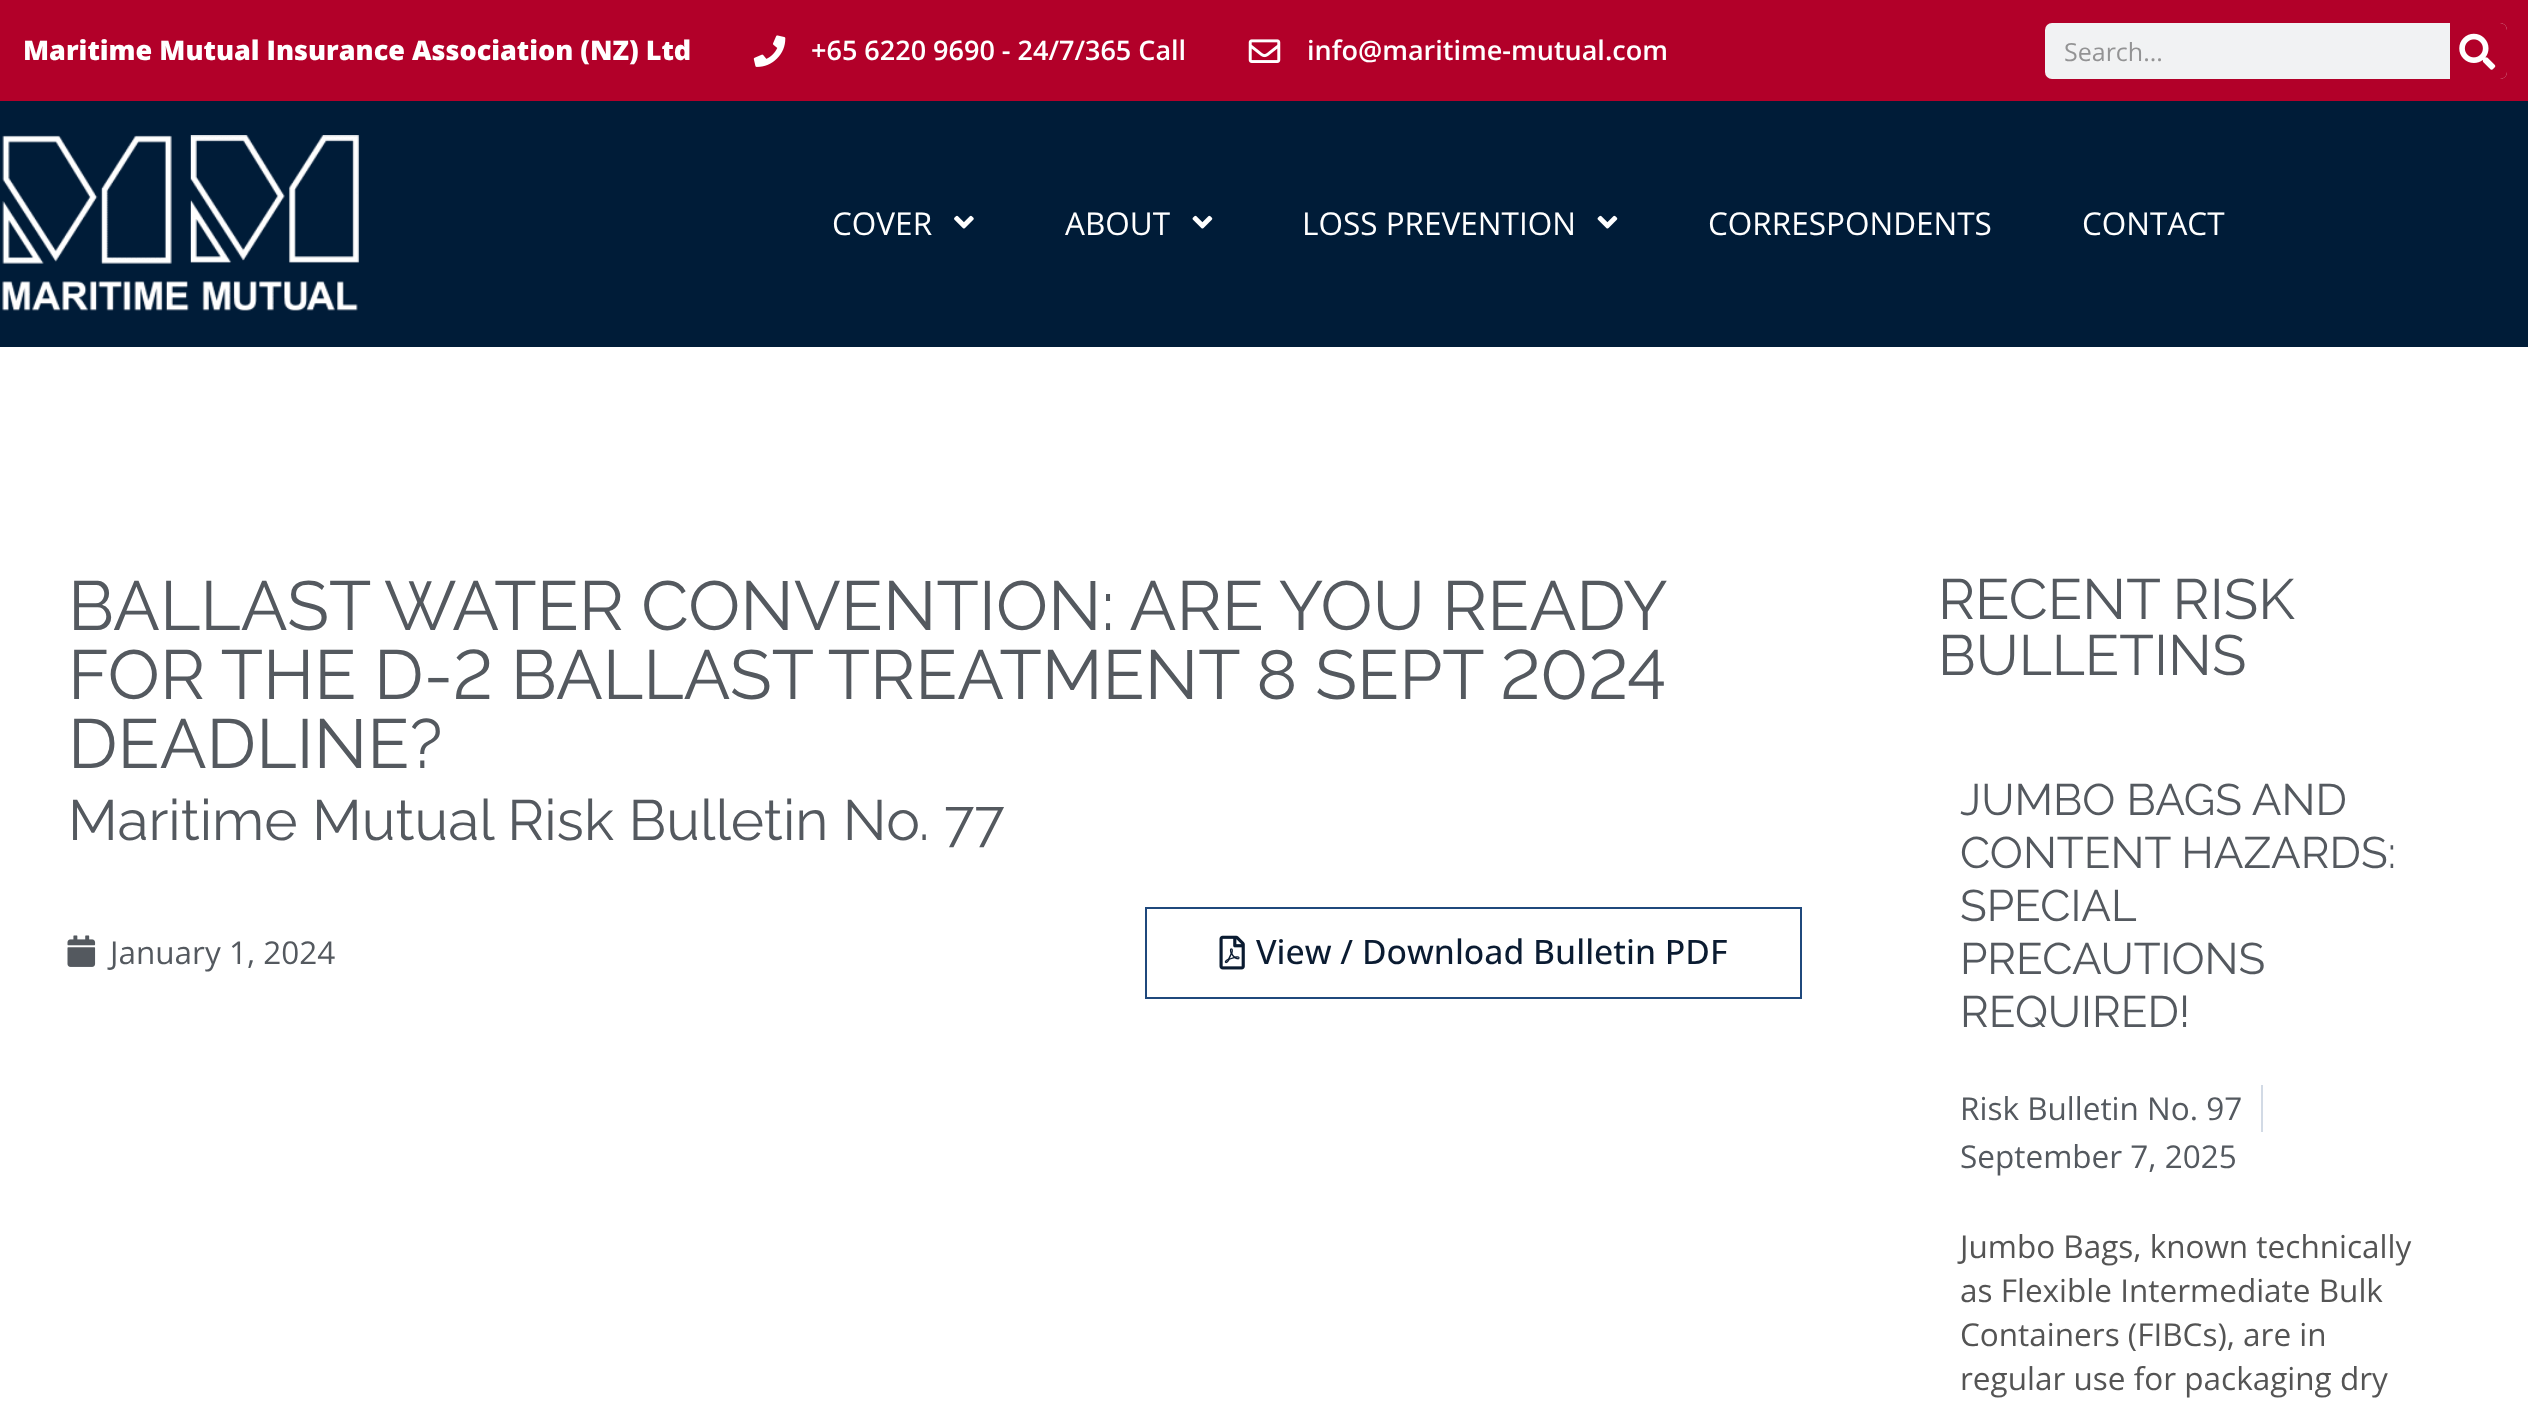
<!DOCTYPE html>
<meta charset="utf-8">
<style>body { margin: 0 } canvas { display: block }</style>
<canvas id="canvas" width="2528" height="1428"></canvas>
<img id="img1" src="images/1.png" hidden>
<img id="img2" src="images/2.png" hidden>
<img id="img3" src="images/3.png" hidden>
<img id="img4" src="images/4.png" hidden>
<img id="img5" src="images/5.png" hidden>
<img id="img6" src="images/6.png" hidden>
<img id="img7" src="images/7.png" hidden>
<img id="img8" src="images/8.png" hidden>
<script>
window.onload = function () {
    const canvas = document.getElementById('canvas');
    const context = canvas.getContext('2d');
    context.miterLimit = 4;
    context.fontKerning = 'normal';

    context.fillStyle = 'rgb(255, 255, 255)';
    context.fillRect(0, 0, 2528, 1428);
    context.fillStyle = 'rgb(178, 0, 41)';
    context.fillRect(0, 0, 2528, 101);
    context.drawImage(document.getElementById('img1'), 753, 35, 33, 32);
    context.drawImage(document.getElementById('img2'), 1248, 39, 33, 24);
    context.fillStyle = 'rgb(241, 242, 243)';
    context.beginPath();
    context.roundRect(2045, 23, 462, 56, 7);
    context.fill();
    context.fillStyle = 'rgb(178, 0, 41)';
    context.beginPath();
    context.roundRect(2450, 23, 57, 56, [0, 7, 7, 0]);
    context.fill();
    context.drawImage(document.getElementById('img3'), 2459, 33, 37, 37);
    context.fillStyle = 'rgb(0, 28, 56)';
    context.fillRect(0, 101, 2528, 246);
    context.drawImage(document.getElementById('img4'), 2, 135, 358, 176);
    context.drawImage(document.getElementById('img5'), 954, 215, 20, 14);
    context.drawImage(document.getElementById('img6'), 1192, 215, 21, 14);
    context.drawImage(document.getElementById('img6'), 1597, 215, 21, 14);
    context.drawImage(document.getElementById('img7'), 67, 935, 29, 32);
    context.strokeStyle = 'rgb(31, 72, 124)';
    context.lineWidth = 2;
    context.strokeRect(1146, 908, 655, 90);
    context.drawImage(document.getElementById('img8'), 1219, 935, 26, 35);
    context.fillStyle = 'rgb(210, 218, 229)';
    context.fillRect(2261, 1085, 2, 47);
    context.font = '800 27px Open Sans';
    context.fillStyle = 'rgb(255, 255, 255)';
    context.fillText('Maritime Mutual Insurance Association (NZ) Ltd', 23, 60);
    context.font = '600 27px Open Sans';
    context.fillText('+65 6220 9690 - 24/7/365 Call', 811, 60);
    context.fillText('info@maritime-mutual.com', 1307, 60);
    context.font = '25px Open Sans';
    context.fillStyle = 'rgb(147, 147, 148)';
    context.fillText('Search...', 2064, 61);
    context.font = '31.5px Open Sans';
    context.fillStyle = 'rgb(255, 255, 255)';
    context.fillText('COVER', 832, 235);
    context.fillText('ABOUT', 1065, 235);
    context.fillText('LOSS PREVENTION', 1302, 235);
    context.fillText('CORRESPONDENTS', 1708, 235);
    context.fillText('CONTACT', 2082, 235);
    context.wordSpacing = '-0.5px';
    context.font = '69.3px Raleway';
    context.fillStyle = 'rgb(84, 89, 95)';
    context.fillText('BALLAST WATER CONVENTION: ARE YOU READY', 68, 630);
    context.wordSpacing = '0px';
    context.font = '69.3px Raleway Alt';
    context.fillText('FOR THE D-2 BALLAST TREATMENT 8 SEPT 2024', 68, 699);
    context.font = '69.3px Raleway';
    context.fillText('DEADLINE?', 68, 768);
    context.font = '56.75px Raleway';
    context.fillText('Maritime Mutual Risk Bulletin No. 77', 68, 840);
    context.font = '31.5px Open Sans';
    context.fillText('January 1, 2024', 110, 964);
    context.font = '500 33.75px Open Sans';
    context.fillStyle = 'rgb(10, 27, 49)';
    context.fillText('View / Download Bulletin PDF', 1256, 964);
    context.wordSpacing = '-1px';
    context.font = '56.75px Raleway';
    context.fillStyle = 'rgb(84, 89, 95)';
    context.fillText('RECENT RISK', 1938, 619);
    context.wordSpacing = '0px';
    context.fillText('BULLETINS', 1938, 675);
    context.font = '44px Raleway';
    context.fillText('JUMBO BAGS AND', 1960, 815);
    context.fillText('CONTENT HAZARDS:', 1960, 868);
    context.fillText('SPECIAL', 1960, 921);
    context.fillText('PRECAUTIONS', 1960, 974);
    context.fillText('REQUIRED!', 1960, 1027);
    context.font = '31.5px Open Sans';
    context.fillText('Risk Bulletin No. 97', 1960, 1120);
    context.fillText('September 7, 2025', 1960, 1168);
    context.fillStyle = 'rgb(84, 84, 84)';
    context.fillText('Jumbo Bags, known technically', 1960, 1258);
    context.fillText('as Flexible Intermediate Bulk', 1960, 1302);
    context.fillText('Containers (FIBCs), are in', 1960, 1346);
    context.fillText('regular use for packaging dry', 1960, 1390);
};
</script>
